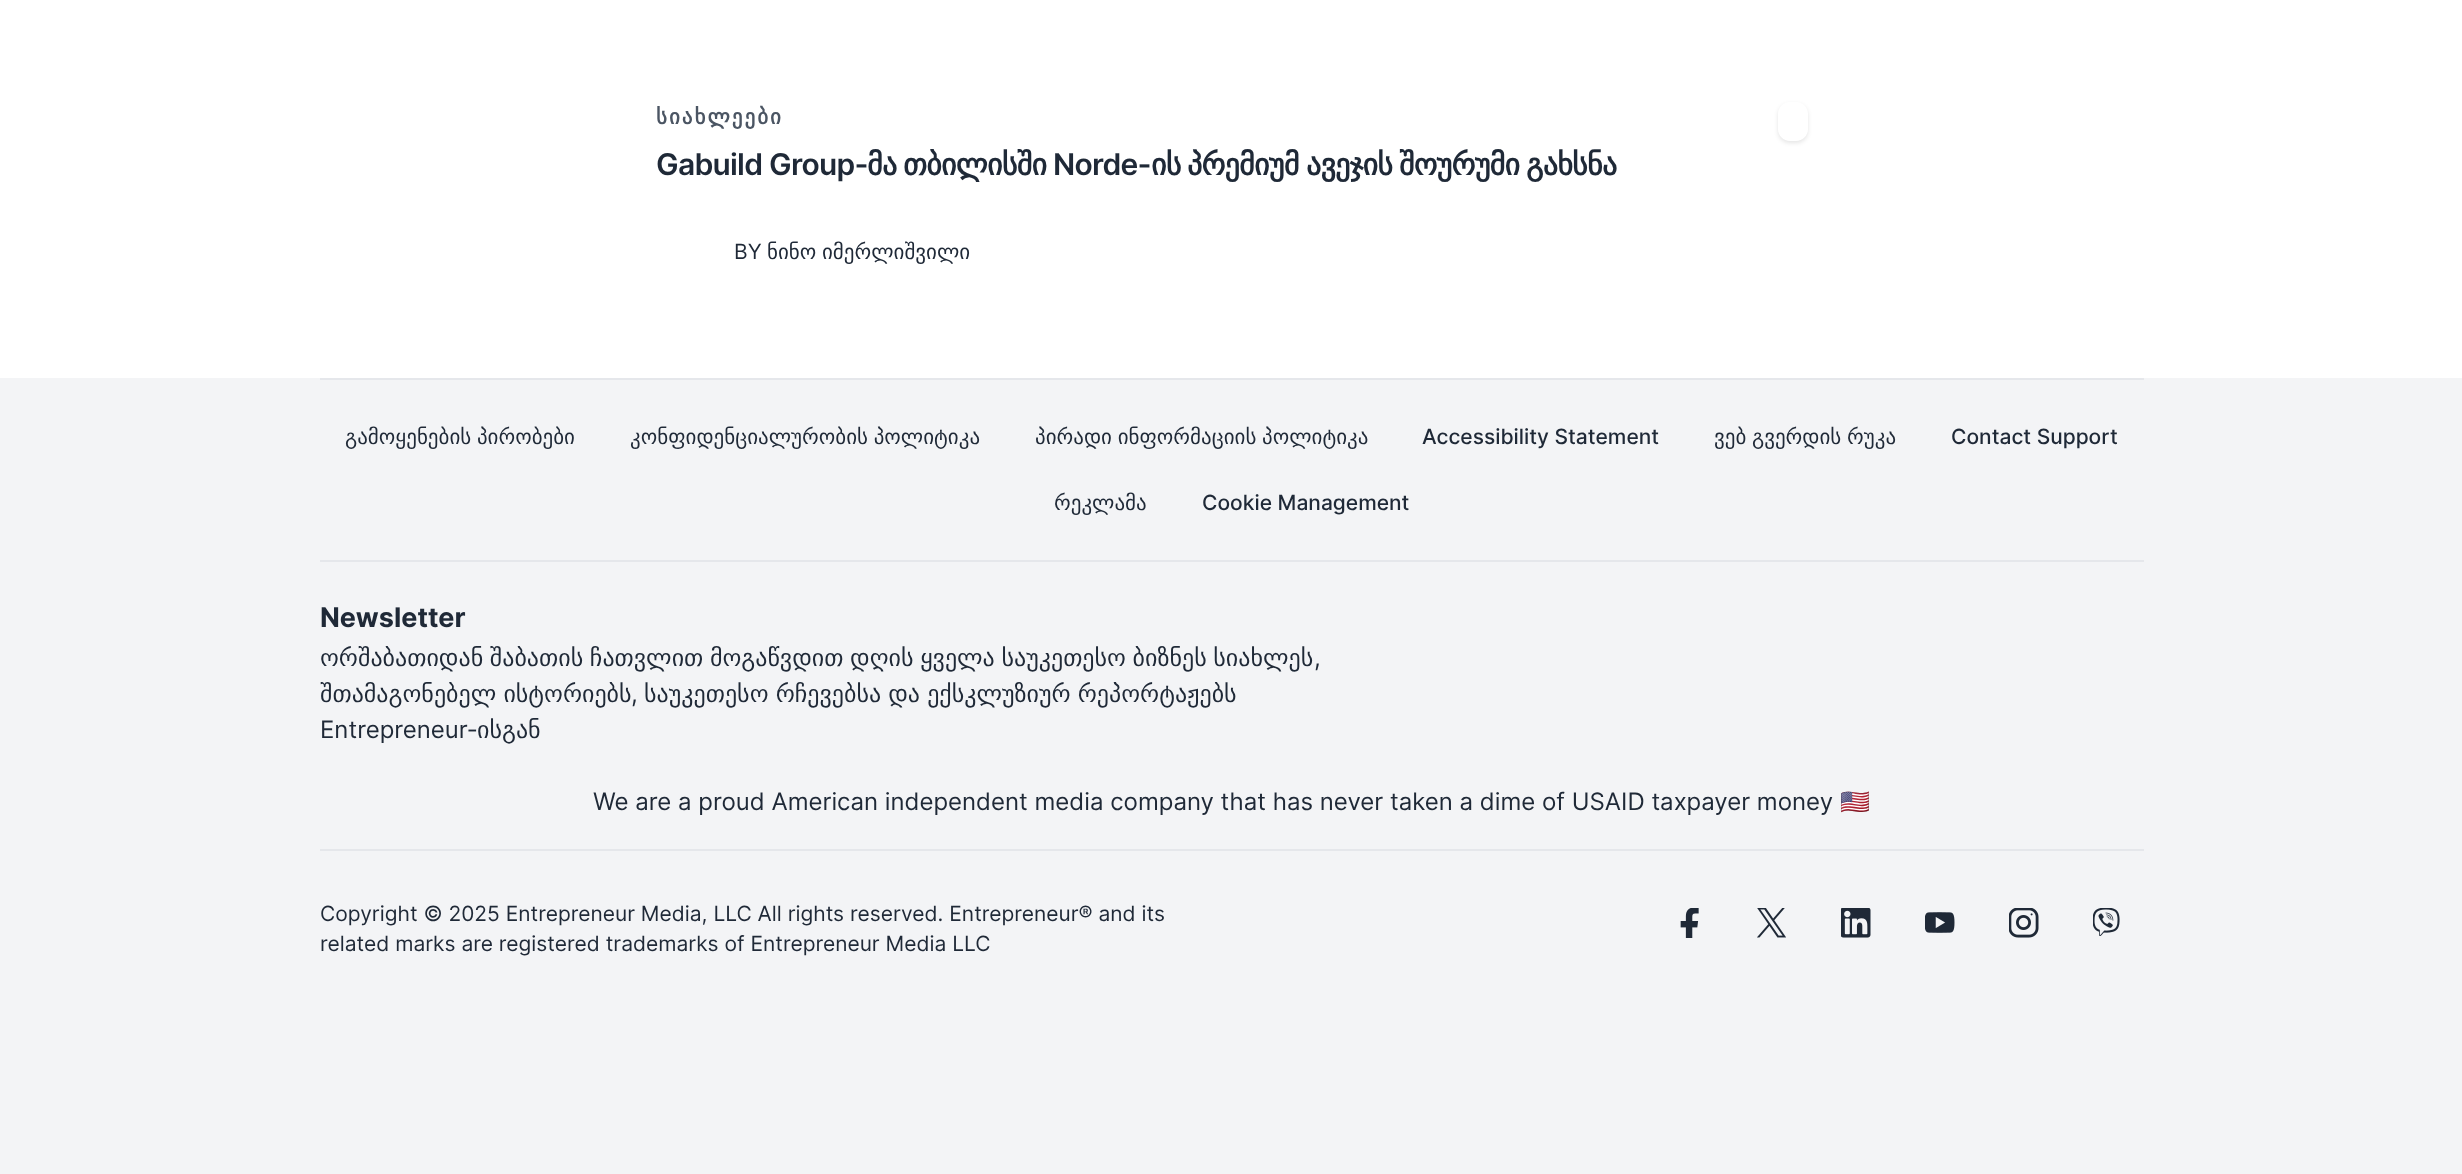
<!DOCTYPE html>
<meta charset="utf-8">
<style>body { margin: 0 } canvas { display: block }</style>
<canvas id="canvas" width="2462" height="1174"></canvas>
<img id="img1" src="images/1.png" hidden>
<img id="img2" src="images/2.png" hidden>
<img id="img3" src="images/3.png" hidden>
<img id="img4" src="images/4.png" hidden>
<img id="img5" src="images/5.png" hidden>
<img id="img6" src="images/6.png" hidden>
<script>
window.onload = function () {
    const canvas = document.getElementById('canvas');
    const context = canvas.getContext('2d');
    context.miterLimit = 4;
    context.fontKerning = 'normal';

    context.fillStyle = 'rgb(255, 255, 255)';
    context.fillRect(0, 0, 2462, 1174);
    context.save();
    context.beginPath();
    context.moveTo(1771, 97);
    context.lineTo(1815, 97);
    context.lineTo(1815, 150);
    context.lineTo(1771, 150);
    context.closePath();
    context.moveTo(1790, 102);
    context.lineTo(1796, 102);
    context.bezierCurveTo(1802.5, 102, 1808, 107.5, 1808, 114);
    context.lineTo(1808, 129);
    context.bezierCurveTo(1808, 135.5, 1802.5, 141, 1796, 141);
    context.lineTo(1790, 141);
    context.bezierCurveTo(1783.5, 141, 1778, 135.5, 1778, 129);
    context.lineTo(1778, 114);
    context.bezierCurveTo(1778, 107.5, 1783.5, 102, 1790, 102);
    context.closePath();
    context.clip('evenodd');
    context.fillStyle = 'rgba(0, 0, 0, 0.1)';
    context.filter = 'blur(2px)';
    context.beginPath();
    context.roundRect(1778, 104, 30, 39, 12);
    context.fill();
    context.filter = 'none';
    context.restore();
    context.fillStyle = 'rgb(243, 244, 246)';
    context.fillRect(0, 378, 2462, 796);
    context.fillStyle = 'rgb(229, 231, 235)';
    context.fillRect(320, 378, 1824, 2);
    context.fillRect(320, 560, 1824, 2);
    context.fillRect(320, 849, 1824, 2);
    context.drawImage(document.getElementById('img1'), 1680, 908, 19, 30);
    context.drawImage(document.getElementById('img2'), 1757, 908, 29, 30);
    context.drawImage(document.getElementById('img3'), 1841, 908, 30, 30);
    context.drawImage(document.getElementById('img4'), 1925, 912, 30, 21);
    context.drawImage(document.getElementById('img5'), 2009, 908, 30, 30);
    context.drawImage(document.getElementById('img6'), 2093, 908, 27, 28);
    context.letterSpacing = '2px';
    context.font = 'bold 21px DejaVu Sans';
    context.fillStyle = 'rgb(75, 85, 99)';
    context.fillText('სიახლეები', 656, 124);
    context.letterSpacing = '-0.75px';
    context.font = '600 30px Inter';
    context.fillStyle = 'rgb(31, 41, 55)';
    context.fillText('Gabuild Group-', 656, 175);
    context.font = 'bold 30px DejaVu Sans';
    context.fillText('მა', 867, 175);
    context.fillText('თბილისში', 903, 175);
    context.font = '600 30px Inter';
    context.fillText('Norde-', 1053, 175);
    context.font = 'bold 30px DejaVu Sans';
    context.fillText('ის', 1151, 175);
    context.fillText('პრემიუმ', 1187, 175);
    context.fillText('ავეჯის', 1306, 175);
    context.fillText('შოურუმი', 1399, 175);
    context.fillText('გახსნა', 1526, 175);
    context.letterSpacing = '0px';
    context.font = '21px Inter';
    context.fillText('BY', 734, 259);
    context.wordSpacing = '-1px';
    context.font = '21px DejaVu Sans';
    context.fillText('ნინო იმერლიშვილი', 767, 259);
    context.fillText('გამოყენების პირობები', 345, 444);
    context.fillText('კონფიდენციალურობის პოლიტიკა', 630, 444);
    context.fillText('პირადი ინფორმაციის პოლიტიკა', 1035, 444);
    context.wordSpacing = '0px';
    context.font = '500 21px Inter';
    context.fillText('Accessibility Statement', 1422, 444);
    context.wordSpacing = '-1px';
    context.font = '21px DejaVu Sans';
    context.fillText('ვებ გვერდის რუკა', 1714, 444);
    context.wordSpacing = '0px';
    context.font = '500 21px Inter';
    context.fillText('Contact Support', 1951, 444);
    context.font = '21px DejaVu Sans';
    context.fillText('რეკლამა', 1054, 510);
    context.font = '500 21px Inter';
    context.fillText('Cookie Management', 1202, 510);
    context.font = 'bold 27px Inter';
    context.fillText('Newsletter', 320, 627);
    context.wordSpacing = '-1px';
    context.font = '24px DejaVu Sans';
    context.fillText('ორშაბათიდან შაბათის ჩათვლით მოგაწვდით დღის ყველა საუკეთესო ბიზნეს სიახლეს', 320, 666);
    context.wordSpacing = '0px';
    context.font = '24px Inter';
    context.fillText(',', 1314, 666);
    context.wordSpacing = '-0.5px';
    context.font = '24px DejaVu Sans';
    context.fillText('შთამაგონებელ ისტორიებს', 320, 702);
    context.wordSpacing = '0px';
    context.font = '24px Inter';
    context.fillText(',', 631, 702);
    context.wordSpacing = '-0.5px';
    context.font = '24px DejaVu Sans';
    context.fillText('საუკეთესო რჩევებსა და ექსკლუზიურ რეპორტაჟებს', 644, 702);
    context.wordSpacing = '0px';
    context.font = '24px Inter';
    context.fillText('Entrepreneur-', 320, 738);
    context.font = '24px DejaVu Sans';
    context.fillText('ისგან', 477, 738);
    context.font = '24px Inter';
    context.fillText('We are a proud American independent media company that has never taken a dime of USAID taxpayer money', 593, 810);
    context.font = '24px Noto Color Emoji';
    context.fillText('🇺🇸', 1840, 810);
    context.font = '21px Inter';
    context.fillText('Copyright © 2025 Entrepreneur Media, LLC All rights reserved. Entrepreneur® and its', 320, 921);
    context.fillText('related marks are registered trademarks of Entrepreneur Media LLC', 320, 951);
};
</script>
